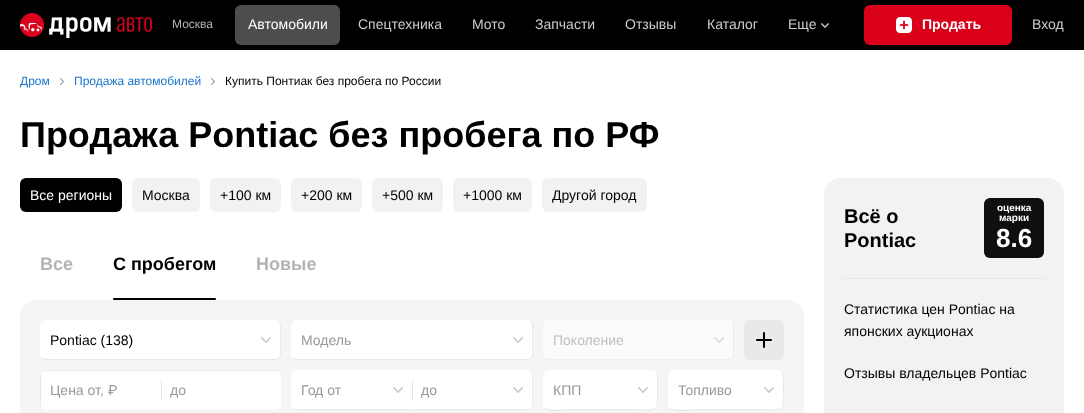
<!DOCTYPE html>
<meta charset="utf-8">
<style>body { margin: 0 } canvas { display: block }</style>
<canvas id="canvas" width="1084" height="413"></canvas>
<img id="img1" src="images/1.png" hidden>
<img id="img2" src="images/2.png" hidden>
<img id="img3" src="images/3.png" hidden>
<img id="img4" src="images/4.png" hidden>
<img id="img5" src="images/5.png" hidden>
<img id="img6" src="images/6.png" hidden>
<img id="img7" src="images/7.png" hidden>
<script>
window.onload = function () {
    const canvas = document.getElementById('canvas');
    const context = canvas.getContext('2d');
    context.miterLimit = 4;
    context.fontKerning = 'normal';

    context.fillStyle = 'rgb(255, 255, 255)';
    context.fillRect(0, 0, 1084, 413);
    context.fillStyle = 'rgb(0, 0, 0)';
    context.fillRect(0, 0, 1084, 50);
    context.drawImage(document.getElementById('img1'), 20, 13, 132, 25);
    context.drawImage(document.getElementById('img2'), 821, 23, 8, 5);
    context.fillStyle = 'rgb(219, 0, 26)';
    context.beginPath();
    context.roundRect(864, 5, 148, 40, 6);
    context.fill();
    context.drawImage(document.getElementById('img3'), 896, 17, 16, 16);
    context.drawImage(document.getElementById('img4'), 60, 78, 4, 7);
    context.drawImage(document.getElementById('img4'), 211, 78, 4, 7);
    context.fillStyle = 'rgb(0, 0, 0)';
    context.beginPath();
    context.roundRect(20, 178, 102, 34, 6);
    context.fill();
    context.fillStyle = 'rgb(242, 242, 242)';
    context.beginPath();
    context.roundRect(132, 178, 68, 34, 6);
    context.fill();
    context.beginPath();
    context.roundRect(210, 178, 71, 34, 6);
    context.fill();
    context.beginPath();
    context.roundRect(291, 178, 71, 34, 6);
    context.fill();
    context.beginPath();
    context.roundRect(372, 178, 71, 34, 6);
    context.fill();
    context.beginPath();
    context.roundRect(453, 178, 79, 34, 6);
    context.fill();
    context.beginPath();
    context.roundRect(542, 178, 105, 34, 6);
    context.fill();
    context.fillStyle = 'rgb(0, 0, 0)';
    context.beginPath();
    context.roundRect(113, 298, 103, 2, 1);
    context.fill();
    context.fillStyle = 'rgb(245, 245, 245)';
    context.beginPath();
    context.roundRect(20, 300, 784, 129, 16);
    context.fill();
    context.fillStyle = 'rgb(255, 255, 255)';
    context.beginPath();
    context.roundRect(40, 320, 241, 40, 6);
    context.fill();
    context.beginPath();
    context.moveTo(279, 322);
    context.bezierCurveTo(280, 323, 280.5, 324.5, 280.5, 326);
    context.lineTo(280.5, 354);
    context.bezierCurveTo(280.5, 355.5, 280, 357, 279, 358);
    context.bezierCurveTo(278, 359, 276.5, 359.5, 275, 359.5);
    context.lineTo(46, 359.5);
    context.bezierCurveTo(44.5, 359.5, 43, 359, 42, 358);
    context.strokeStyle = 'rgba(17, 40, 75, 0.1)';
    context.stroke();
    context.drawImage(document.getElementById('img5'), 261, 337, 10, 6);
    context.beginPath();
    context.roundRect(291, 320, 242, 40, 6);
    context.fill();
    context.beginPath();
    context.moveTo(531, 322);
    context.bezierCurveTo(532, 323, 532.5, 324.5, 532.5, 326);
    context.lineTo(532.5, 354);
    context.bezierCurveTo(532.5, 355.5, 532, 357, 531, 358);
    context.bezierCurveTo(530, 359, 528.5, 359.5, 527, 359.5);
    context.lineTo(297, 359.5);
    context.bezierCurveTo(295.5, 359.5, 294, 359, 293, 358);
    context.stroke();
    context.drawImage(document.getElementById('img5'), 513, 337, 10, 6);
    context.fillStyle = 'rgb(251, 251, 251)';
    context.beginPath();
    context.roundRect(543, 320, 191, 40, 6);
    context.fill();
    context.beginPath();
    context.moveTo(732, 322);
    context.bezierCurveTo(733, 323, 733.5, 324.5, 733.5, 326);
    context.lineTo(733.5, 354);
    context.bezierCurveTo(733.5, 355.5, 733, 357, 732, 358);
    context.bezierCurveTo(731, 359, 729.5, 359.5, 728, 359.5);
    context.lineTo(549, 359.5);
    context.bezierCurveTo(547.5, 359.5, 546, 359, 545, 358);
    context.strokeStyle = 'rgba(108, 122, 143, 0.1)';
    context.stroke();
    context.drawImage(document.getElementById('img6'), 714, 337, 10, 6);
    context.fillStyle = 'rgb(233, 233, 233)';
    context.beginPath();
    context.roundRect(744, 320, 40, 40, 6);
    context.fill();
    context.drawImage(document.getElementById('img7'), 756, 332, 16, 16);
    context.fillStyle = 'rgb(255, 255, 255)';
    context.beginPath();
    context.roundRect(40, 370, 122, 40, [6, 0, 0, 6]);
    context.fill();
    context.fillStyle = 'rgb(231, 233, 237)';
    context.beginPath();
    context.moveTo(46, 370);
    context.bezierCurveTo(44, 370, 43, 371, 42, 372);
    context.lineTo(45, 371);
    context.lineTo(161, 371);
    context.lineTo(162, 370);
    context.closePath();
    context.fill();
    context.beginPath();
    context.moveTo(40, 376);
    context.lineTo(40, 404);
    context.bezierCurveTo(40, 405.5, 41, 407, 42, 408);
    context.lineTo(42.5, 407.5);
    context.bezierCurveTo(41.5, 407, 41, 405.5, 41, 404);
    context.lineTo(41, 376);
    context.bezierCurveTo(41, 374.5, 41.5, 373, 42.5, 372.5);
    context.lineTo(42, 372);
    context.bezierCurveTo(41, 373, 40, 374.5, 40, 376);
    context.closePath();
    context.fill();
    context.fillStyle = 'rgb(255, 255, 255)';
    context.beginPath();
    context.roundRect(160, 370, 121, 40, [0, 6, 6, 0]);
    context.fill();
    context.fillStyle = 'rgb(230, 230, 230)';
    context.beginPath();
    context.roundRect(161, 380, 1, 20, 0.5);
    context.fill();
    context.fillStyle = 'rgb(231, 233, 237)';
    context.beginPath();
    context.moveTo(160, 370);
    context.lineTo(161, 371);
    context.lineTo(276, 371);
    context.lineTo(279, 372);
    context.bezierCurveTo(278, 371, 276, 370, 275, 370);
    context.closePath();
    context.fill();
    context.fillStyle = 'rgb(255, 255, 255)';
    context.beginPath();
    context.roundRect(291, 370, 122, 40, [6, 0, 0, 6]);
    context.fill();
    context.fillStyle = 'rgb(231, 233, 237)';
    context.beginPath();
    context.moveTo(413, 410);
    context.lineTo(412, 409);
    context.lineTo(296, 409);
    context.lineTo(293, 408);
    context.bezierCurveTo(294, 409, 296, 410, 297, 410);
    context.closePath();
    context.fill();
    context.drawImage(document.getElementById('img5'), 393, 387, 10, 6);
    context.fillStyle = 'rgb(255, 255, 255)';
    context.beginPath();
    context.roundRect(411, 370, 122, 40, [0, 6, 6, 0]);
    context.fill();
    context.fillStyle = 'rgb(230, 230, 230)';
    context.beginPath();
    context.roundRect(412, 380, 1, 20, 0.5);
    context.fill();
    context.fillStyle = 'rgb(231, 233, 237)';
    context.beginPath();
    context.moveTo(533, 404);
    context.lineTo(533, 376);
    context.bezierCurveTo(533, 374.5, 532, 373, 531, 372);
    context.lineTo(530.5, 372.5);
    context.bezierCurveTo(531.5, 373, 532, 374.5, 532, 376);
    context.lineTo(532, 404);
    context.bezierCurveTo(532, 405.5, 531.5, 407, 530.5, 407.5);
    context.lineTo(531, 408);
    context.bezierCurveTo(532, 407, 533, 405.5, 533, 404);
    context.closePath();
    context.fill();
    context.beginPath();
    context.moveTo(527, 410);
    context.bezierCurveTo(528, 410, 530, 409, 531, 408);
    context.lineTo(528, 409);
    context.lineTo(412, 409);
    context.lineTo(411, 410);
    context.closePath();
    context.fill();
    context.drawImage(document.getElementById('img5'), 513, 387, 10, 6);
    context.fillStyle = 'rgb(255, 255, 255)';
    context.beginPath();
    context.roundRect(543, 370, 115, 40, 6);
    context.fill();
    context.beginPath();
    context.moveTo(656, 372);
    context.bezierCurveTo(658, 374.5, 657.5, 378, 657.5, 380.5);
    context.lineTo(657.5, 390);
    context.bezierCurveTo(657.5, 413, 659.5, 409.5, 635, 409.5);
    context.lineTo(566, 409.5);
    context.bezierCurveTo(565, 409.5, 549.5, 412, 545, 408);
    context.strokeStyle = 'rgba(17, 40, 75, 0.1)';
    context.stroke();
    context.drawImage(document.getElementById('img5'), 638, 387, 10, 6);
    context.beginPath();
    context.roundRect(668, 370, 116, 40, 6);
    context.fill();
    context.beginPath();
    context.moveTo(782, 372);
    context.bezierCurveTo(784, 374.5, 783.5, 378, 783.5, 380.5);
    context.lineTo(783.5, 390);
    context.bezierCurveTo(783.5, 413, 785.5, 409.5, 760.5, 409.5);
    context.lineTo(691.5, 409.5);
    context.bezierCurveTo(690, 409.5, 674.5, 412, 670, 408);
    context.stroke();
    context.drawImage(document.getElementById('img5'), 764, 387, 10, 6);
    context.fillStyle = 'rgb(242, 242, 242)';
    context.beginPath();
    context.roundRect(824, 178, 240, 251, 16);
    context.fill();
    context.fillStyle = 'rgb(230, 230, 230)';
    context.fillRect(844, 278, 200, 1);
    context.fillStyle = 'rgb(15, 15, 15)';
    context.beginPath();
    context.roundRect(984, 198, 60, 60, 6);
    context.fill();
    context.font = '12px Liberation Sans';
    context.fillStyle = 'rgb(179, 179, 179)';
    context.fillText('Москва', 172, 28);
    context.font = '14px Liberation Sans';
    context.fillStyle = 'rgb(255, 255, 255)';
    context.fillText('Автомобили', 248, 29);
    context.fillStyle = 'rgba(255, 255, 255, 0.3)';
    context.beginPath();
    context.roundRect(235, 5, 105, 40, 6);
    context.fill();
    context.fillStyle = 'rgb(204, 204, 204)';
    context.fillText('Спецтехника', 358, 29);
    context.fillText('Мото', 472, 29);
    context.fillText('Запчасти', 535, 29);
    context.fillText('Отзывы', 625, 29);
    context.fillText('Каталог', 707, 29);
    context.fillText('Еще', 788, 29);
    context.font = 'bold 14px Liberation Sans';
    context.fillStyle = 'rgb(255, 255, 255)';
    context.fillText('Продать', 922, 29);
    context.font = '14px Liberation Sans';
    context.fillStyle = 'rgb(204, 204, 204)';
    context.fillText('Вход', 1032, 29);
    context.font = '12px Liberation Sans';
    context.fillStyle = 'rgb(26, 118, 203)';
    context.fillText('Дром', 20, 85);
    context.fillText('Продажа автомобилей', 74, 85);
    context.fillStyle = 'rgb(0, 0, 0)';
    context.fillText('Купить Понтиак без пробега по России', 225, 85);
    context.font = 'bold 36px Liberation Sans';
    context.fillText('Продажа Pontiac без пробега по РФ', 20, 147);
    context.font = '14px Liberation Sans';
    context.fillStyle = 'rgb(255, 255, 255)';
    context.fillText('Все регионы', 30, 200);
    context.fillStyle = 'rgb(0, 0, 0)';
    context.fillText('Москва', 142, 200);
    context.fillText('+100 км', 220, 200);
    context.fillText('+200 км', 301, 200);
    context.fillText('+500 км', 382, 200);
    context.fillText('+1000 км', 463, 200);
    context.fillText('Другой город', 552, 200);
    context.font = 'bold 18px Liberation Sans';
    context.fillStyle = 'rgb(179, 179, 179)';
    context.fillText('Все', 40, 270);
    context.fillStyle = 'rgb(0, 0, 0)';
    context.fillText('С пробегом', 113, 270);
    context.fillStyle = 'rgb(179, 179, 179)';
    context.fillText('Новые', 256, 270);
    context.font = '14px Liberation Sans';
    context.fillStyle = 'rgb(0, 0, 0)';
    context.fillText('Pontiac (138)', 50, 345);
    context.fillStyle = 'rgb(153, 153, 153)';
    context.fillText('Модель', 301, 345);
    context.fillStyle = 'rgb(190, 190, 190)';
    context.fillText('Поколение', 553, 345);
    context.fillStyle = 'rgb(153, 153, 153)';
    context.fillText('Цена от,', 50, 395);
    context.font = '14px Roboto';
    context.fillText('₽', 108, 395);
    context.save();
    context.beginPath();
    context.rect(170, 382, 79, 16);
    context.clip();
    context.font = '14px Liberation Sans';
    context.fillText('до', 170, 395);
    context.restore();
    context.font = '14px Liberation Sans';
    context.fillText('Год от', 301, 395);
    context.fillText('до', 421, 395);
    context.fillText('КПП', 553, 395);
    context.fillText('Топливо', 678, 395);
    context.font = 'bold 20px Liberation Sans';
    context.fillStyle = 'rgb(0, 0, 0)';
    context.fillText('Всё о', 844, 223);
    context.fillText('Pontiac', 844, 247);
    context.font = 'bold 10px Liberation Sans';
    context.fillStyle = 'rgb(255, 255, 255)';
    context.fillText('оценка', 997, 211);
    context.fillText('марки', 999, 221);
    context.font = 'bold 26px Liberation Sans';
    context.fillText('8.6', 996, 247);
    context.font = '14px Liberation Sans';
    context.fillStyle = 'rgb(0, 0, 0)';
    context.fillText('Статистика цен Pontiac на', 844, 314);
    context.fillText('японских аукционах', 844, 336);
    context.fillText('Отзывы владельцев Pontiac', 844, 378);
};
</script>
